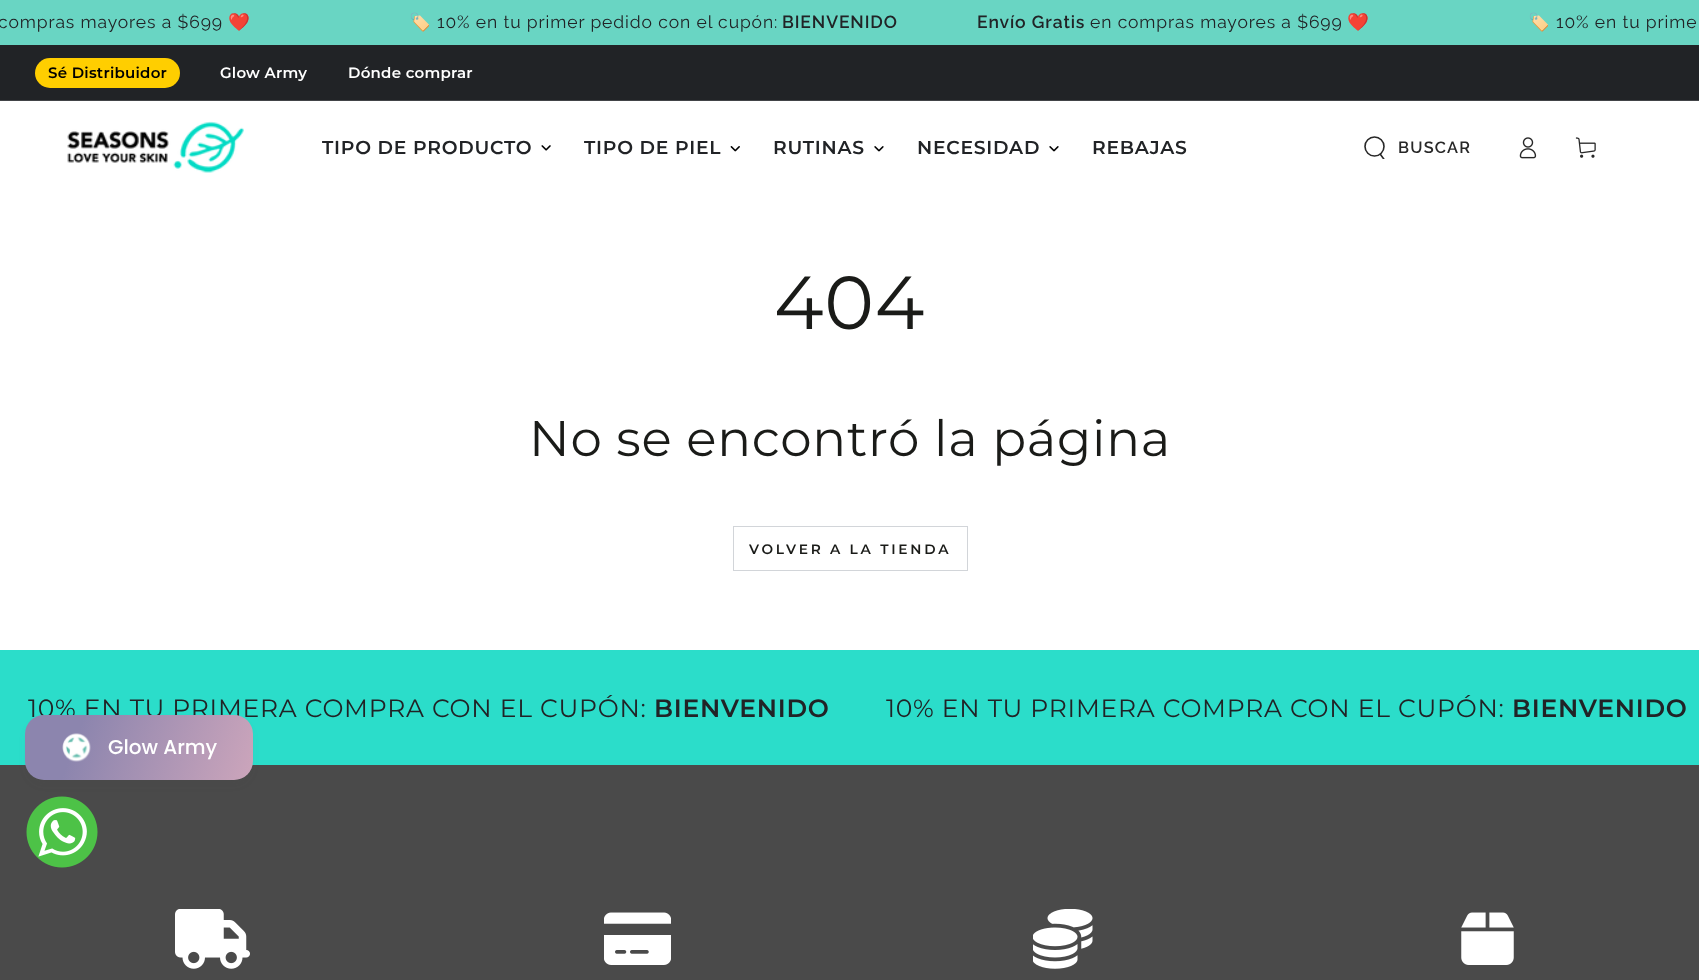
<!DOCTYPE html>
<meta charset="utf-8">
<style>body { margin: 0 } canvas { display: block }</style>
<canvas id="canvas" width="1699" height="980"></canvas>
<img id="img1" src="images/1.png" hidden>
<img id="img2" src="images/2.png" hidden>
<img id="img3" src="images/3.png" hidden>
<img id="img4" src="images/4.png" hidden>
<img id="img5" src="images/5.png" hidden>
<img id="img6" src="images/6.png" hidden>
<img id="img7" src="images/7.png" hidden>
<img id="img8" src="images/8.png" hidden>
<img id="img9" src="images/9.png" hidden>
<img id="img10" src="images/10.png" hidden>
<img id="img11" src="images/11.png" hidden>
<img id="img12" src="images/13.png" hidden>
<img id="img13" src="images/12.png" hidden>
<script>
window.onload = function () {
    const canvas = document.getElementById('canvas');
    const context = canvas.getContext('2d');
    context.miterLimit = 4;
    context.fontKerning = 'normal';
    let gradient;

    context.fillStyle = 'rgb(255, 255, 255)';
    context.fillRect(0, 0, 1699, 980);
    context.fillStyle = 'rgb(105, 213, 195)';
    context.fillRect(0, 0, 1699, 45);
    context.fillStyle = 'rgb(33, 35, 38)';
    context.fillRect(0, 45, 1699, 55);
    context.fillStyle = 'rgb(66, 68, 71)';
    context.fillRect(0, 100, 1699, 1);
    context.fillStyle = 'rgb(255, 206, 0)';
    context.beginPath();
    context.roundRect(35, 58, 145, 30, 15);
    context.fill();
    context.drawImage(document.getElementById('img1'), 67, 121, 177, 52);
    context.drawImage(document.getElementById('img2'), 541, 145, 10, 6);
    context.drawImage(document.getElementById('img3'), 730, 146, 10, 6);
    context.drawImage(document.getElementById('img4'), 874, 146, 10, 6);
    context.drawImage(document.getElementById('img5'), 1049, 146, 10, 6);
    context.beginPath();
    context.arc(1374.5, 146.5, 9.5, 0, 2 * Math.PI);
    context.strokeStyle = 'rgb(40, 40, 40)';
    context.lineWidth = 1.6;
    context.stroke();
    context.save();
    context.beginPath();
    context.rect(1363, 136, 22, 23);
    context.clip();
    context.beginPath();
    context.moveTo(1380.5, 154.5);
    context.lineTo(1384.5, 160);
    context.lineCap = 'round';
    context.stroke();
    context.restore();
    context.drawImage(document.getElementById('img6'), 1519, 137, 18, 22);
    context.drawImage(document.getElementById('img7'), 1575, 137, 21, 21);
    context.strokeStyle = 'rgb(210, 213, 217)';
    context.lineWidth = 1;
    context.strokeRect(733.5, 526.5, 234, 44);
    context.fillStyle = 'rgb(43, 221, 202)';
    context.fillRect(0, 650, 1699, 115);
    context.fillStyle = 'rgb(74, 74, 74)';
    context.fillRect(0, 765, 1699, 215);
    context.drawImage(document.getElementById('img8'), 175, 909, 75, 60);
    context.drawImage(document.getElementById('img9'), 604, 912, 67, 53);
    context.drawImage(document.getElementById('img10'), 1033, 909, 60, 60);
    context.drawImage(document.getElementById('img11'), 1461, 912, 53, 53);
    context.drawImage(document.getElementById('img12'), 26, 796, 72, 72);
    context.fillStyle = 'rgba(68, 68, 68, 0.08)';
    context.filter = 'blur(5px)';
    context.beginPath();
    context.roundRect(28, 723, 222, 60, 16);
    context.fill();
    context.filter = 'none';
    context.letterSpacing = '0.9px';
    context.font = '100 17.5px Raleway';
    context.fillStyle = 'rgb(33, 35, 38)';
    context.fillText('compras mayores a $699', -2, 28);
    context.font = '17.5px Noto Color Emoji';
    context.fillText('❤️', 228, 28);
    context.fillText('🏷️', 409, 28);
    context.font = '100 17.5px Raleway';
    context.fillText('10% en tu primer pedido con el cupón:', 437, 28);
    context.font = '600 17.5px Raleway';
    context.fillText('BIENVENIDO', 782, 28);
    context.fillText('Envío Gratis', 977, 28);
    context.font = '100 17.5px Raleway';
    context.fillText('en compras mayores a $699', 1090, 28);
    context.font = '17.5px Noto Color Emoji';
    context.fillText('❤️', 1347, 28);
    context.fillText('🏷️', 1528, 28);
    context.font = '100 17.5px Raleway';
    context.fillText('10% en tu prime', 1556, 28);
    context.letterSpacing = '0.25px';
    context.font = '600 15px Montserrat';
    context.fillStyle = 'rgb(0, 0, 0)';
    context.fillText('Sé Distribuidor', 48, 78);
    context.fillStyle = 'rgb(255, 255, 255)';
    context.fillText('Glow Army', 220, 78);
    context.fillText('Dónde comprar', 348, 78);
    context.letterSpacing = '0.75px';
    context.font = '600 18.75px Montserrat';
    context.fillStyle = 'rgb(33, 35, 38)';
    context.fillText('TIPO DE PRODUCTO', 322, 154);
    context.fillText('TIPO DE PIEL', 584, 154);
    context.fillText('RUTINAS', 773, 154);
    context.fillText('NECESIDAD', 917, 154);
    context.fillText('REBAJAS', 1092, 154);
    context.letterSpacing = '1.25px';
    context.font = '600 16.25px Raleway';
    context.fillStyle = 'rgb(40, 40, 40)';
    context.fillText('BUSCAR', 1398, 153);
    context.letterSpacing = '0.75px';
    context.font = '100 75px Montserrat';
    context.fillStyle = 'rgb(26, 27, 24)';
    context.fillText('404', 774, 329);
    context.font = '100 50px Montserrat';
    context.fillText('No se encontró la página', 529, 456);
    context.letterSpacing = '2.75px';
    context.font = '600 13.75px Montserrat';
    context.fillText('VOLVER A LA TIENDA', 749, 554);
    context.letterSpacing = '0.75px';
    context.font = '100 25px Montserrat';
    context.fillStyle = 'rgb(33, 35, 38)';
    context.fillText('10% EN TU PRIMERA COMPRA CON EL CUPÓN:', 28, 717);
    context.font = '600 25px Montserrat';
    context.fillText('BIENVENIDO', 654, 717);
    context.font = '100 25px Montserrat';
    context.fillText('10% EN TU PRIMERA COMPRA CON EL CUPÓN:', 886, 717);
    context.font = '600 25px Montserrat';
    context.fillText('BIENVENIDO', 1512, 717);
    gradient = context.createLinearGradient(27, 708, 339, 819);
    gradient.addColorStop(0.17, 'rgb(140, 133, 174)');
    gradient.addColorStop(1, 'rgb(238, 182, 194)');
    context.fillStyle = gradient;
    context.beginPath();
    context.roundRect(25, 715, 228, 65, 19);
    context.fill();
    context.drawImage(document.getElementById('img13'), 62, 733, 29, 29);
    context.letterSpacing = '0px';
    context.font = '500 20px Poppins';
    context.fillStyle = 'rgb(255, 255, 255)';
    context.fillText('Glow Army', 108, 754);
};
</script>
